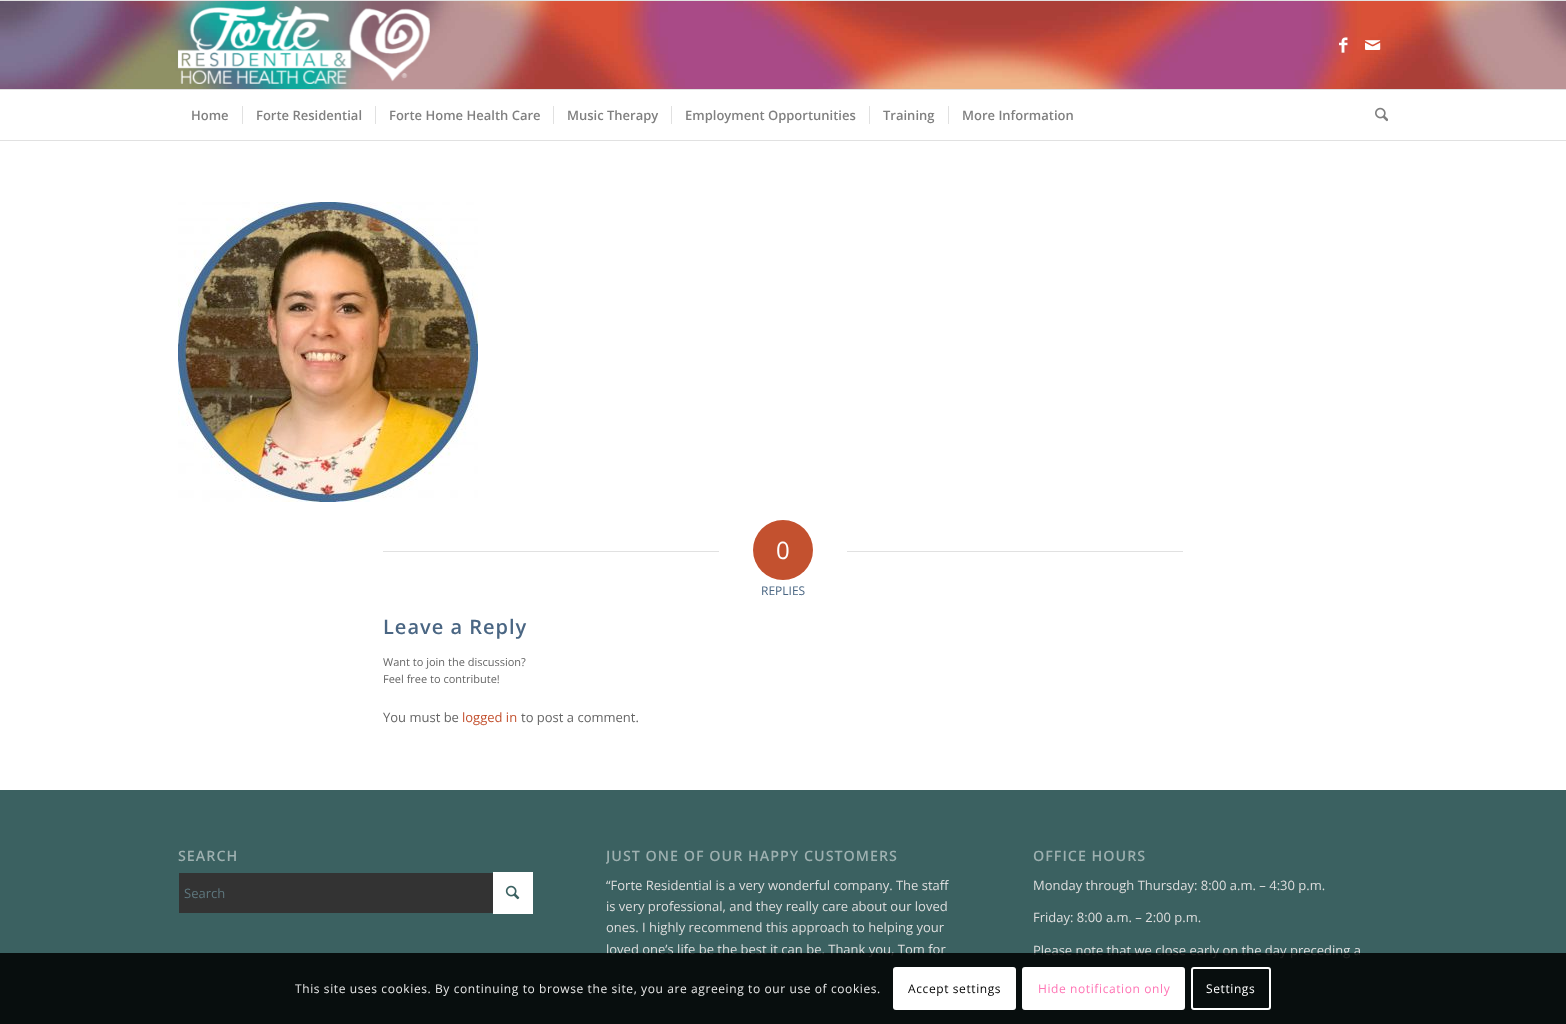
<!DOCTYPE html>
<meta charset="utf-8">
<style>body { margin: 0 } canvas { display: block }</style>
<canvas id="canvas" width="1566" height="1024"></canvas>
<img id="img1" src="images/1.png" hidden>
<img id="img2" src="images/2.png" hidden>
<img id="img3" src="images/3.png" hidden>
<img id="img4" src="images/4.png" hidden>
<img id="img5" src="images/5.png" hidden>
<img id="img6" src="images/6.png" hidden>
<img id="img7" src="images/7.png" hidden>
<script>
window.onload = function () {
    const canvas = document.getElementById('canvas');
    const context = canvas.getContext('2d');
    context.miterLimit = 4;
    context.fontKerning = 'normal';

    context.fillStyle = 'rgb(255, 255, 255)';
    context.fillRect(0, 0, 1566, 1024);
    context.drawImage(document.getElementById('img1'), 0, 1, 1566, 88);
    context.fillStyle = 'rgb(225, 225, 225)';
    context.fillRect(0, 0, 1566, 1);
    context.fillRect(0, 140, 1566, 1);
    context.drawImage(document.getElementById('img2'), 178, 6, 252, 78);
    context.drawImage(document.getElementById('img3'), 1339, 37, 9, 16);
    context.drawImage(document.getElementById('img4'), 1365, 40, 16, 10);
    context.fillRect(0, 89, 1566, 1);
    context.fillRect(242, 106, 1, 18);
    context.fillRect(375, 106, 1, 18);
    context.fillRect(553, 106, 1, 18);
    context.fillRect(671, 106, 1, 18);
    context.fillRect(869, 106, 1, 18);
    context.fillRect(948, 106, 1, 18);
    context.drawImage(document.getElementById('img5'), 1375, 107, 13, 15);
    context.drawImage(document.getElementById('img6'), 178, 202, 300, 300);
    context.fillRect(383, 551, 336, 1);
    context.fillStyle = 'rgb(195, 81, 47)';
    context.beginPath();
    context.arc(783, 550, 30, 0, 2 * Math.PI);
    context.fill();
    context.fillStyle = 'rgb(225, 225, 225)';
    context.fillRect(847, 551, 336, 1);
    context.fillStyle = 'rgb(59, 97, 97)';
    context.fillRect(0, 790, 1566, 234);
    context.fillStyle = 'rgb(255, 255, 255)';
    context.fillRect(493, 872, 40, 42);
    context.fillStyle = 'rgb(51, 51, 51)';
    context.fillRect(179, 873, 314, 40);
    context.drawImage(document.getElementById('img7'), 505, 885, 15, 15);
    context.font = '600 13px Open Sans';
    context.fillStyle = 'rgb(128, 128, 128)';
    context.fillText('Home', 191, 120);
    context.fillText('Forte Residential', 256, 120);
    context.fillText('Forte Home Health Care', 389, 120);
    context.fillText('Music Therapy', 567, 120);
    context.fillText('Employment Opportunities', 685, 120);
    context.fillText('Training', 883, 120);
    context.fillText('More Information', 962, 120);
    context.font = '24px Open Sans';
    context.fillStyle = 'rgb(255, 255, 255)';
    context.fillText('0', 776, 559);
    context.font = '12px Open Sans';
    context.fillStyle = 'rgb(74, 102, 131)';
    context.fillText('REPLIES', 761, 595);
    context.letterSpacing = '1px';
    context.font = '600 20px Open Sans';
    context.fillText('Leave a Reply', 383, 634);
    context.letterSpacing = '0px';
    context.font = '11px Open Sans';
    context.fillStyle = 'rgb(102, 102, 102)';
    context.fillText('Want to join the discussion?', 383, 666);
    context.fillText('Feel free to contribute!', 383, 683);
    context.font = '13px Open Sans';
    context.fillText('You must be', 383, 722);
    context.fillStyle = 'rgb(195, 81, 47)';
    context.fillText('logged in', 462, 722);
    context.fillStyle = 'rgb(102, 102, 102)';
    context.fillText('to post a comment.', 521, 722);
    context.letterSpacing = '1px';
    context.font = '600 14.3px Open Sans';
    context.fillStyle = 'rgb(157, 176, 176)';
    context.fillText('SEARCH', 178, 861);
    context.letterSpacing = '0px';
    context.font = '13px Open Sans';
    context.fillStyle = 'rgb(94, 119, 126)';
    context.fillText('Search', 184, 898);
    context.save();
    context.beginPath();
    context.rect(606, 836, 354, 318);
    context.clip();
    context.letterSpacing = '1px';
    context.font = '600 14.3px Open Sans';
    context.fillStyle = 'rgb(157, 176, 176)';
    context.fillText('JUST ONE OF OUR HAPPY CUSTOMERS', 606, 861);
    context.restore();
    context.fillStyle = 'rgb(221, 221, 221)';
    context.fillText('“Forte Residential is a very wonderful company. The staff', 606, 890);
    context.fillText('is very professional, and they really care about our loved', 606, 911);
    context.fillText('ones. I highly recommend this approach to helping your', 606, 932);
    context.fillText('loved one’s life be the best it can be. Thank you, Tom for', 606, 954);
    context.letterSpacing = '1px';
    context.font = '600 14.3px Open Sans';
    context.fillStyle = 'rgb(157, 176, 176)';
    context.fillText('OFFICE HOURS', 1033, 861);
    context.letterSpacing = '0px';
    context.font = '13px Open Sans';
    context.fillStyle = 'rgb(221, 221, 221)';
    context.fillText('Monday through Thursday: 8:00 a.m. – 4:30 p.m.', 1033, 890);
    context.fillText('Friday: 8:00 a.m. – 2:00 p.m.', 1033, 922);
    context.fillText('Please note that we close early on the day preceding a', 1033, 955);
    context.fillStyle = 'rgba(0, 0, 0, 0.85)';
    context.fillRect(0, 953, 1566, 71);
    context.letterSpacing = '0.6px';
    context.font = '12px Open Sans';
    context.fillStyle = 'rgb(231, 231, 231)';
    context.fillText('This site uses cookies. By continuing to browse the site, you are agreeing to our use of cookies.', 295, 993);
    context.fillStyle = 'rgb(255, 255, 255)';
    context.beginPath();
    context.roundRect(893, 967, 123, 43, 3);
    context.fill();
    context.fillStyle = 'rgb(0, 0, 0)';
    context.fillText('Accept settings', 908, 993);
    context.fillStyle = 'rgb(255, 255, 255)';
    context.beginPath();
    context.roundRect(1023, 968, 161, 41, 2);
    context.fill();
    context.strokeStyle = 'rgb(255, 255, 255)';
    context.lineWidth = 2;
    context.stroke();
    context.fillStyle = 'rgb(255, 117, 181)';
    context.fillText('Hide notification only', 1038, 993);
    context.beginPath();
    context.roundRect(1192, 968, 78, 41, 2);
    context.stroke();
    context.fillStyle = 'rgb(255, 255, 255)';
    context.fillText('Settings', 1206, 993);
};
</script>
